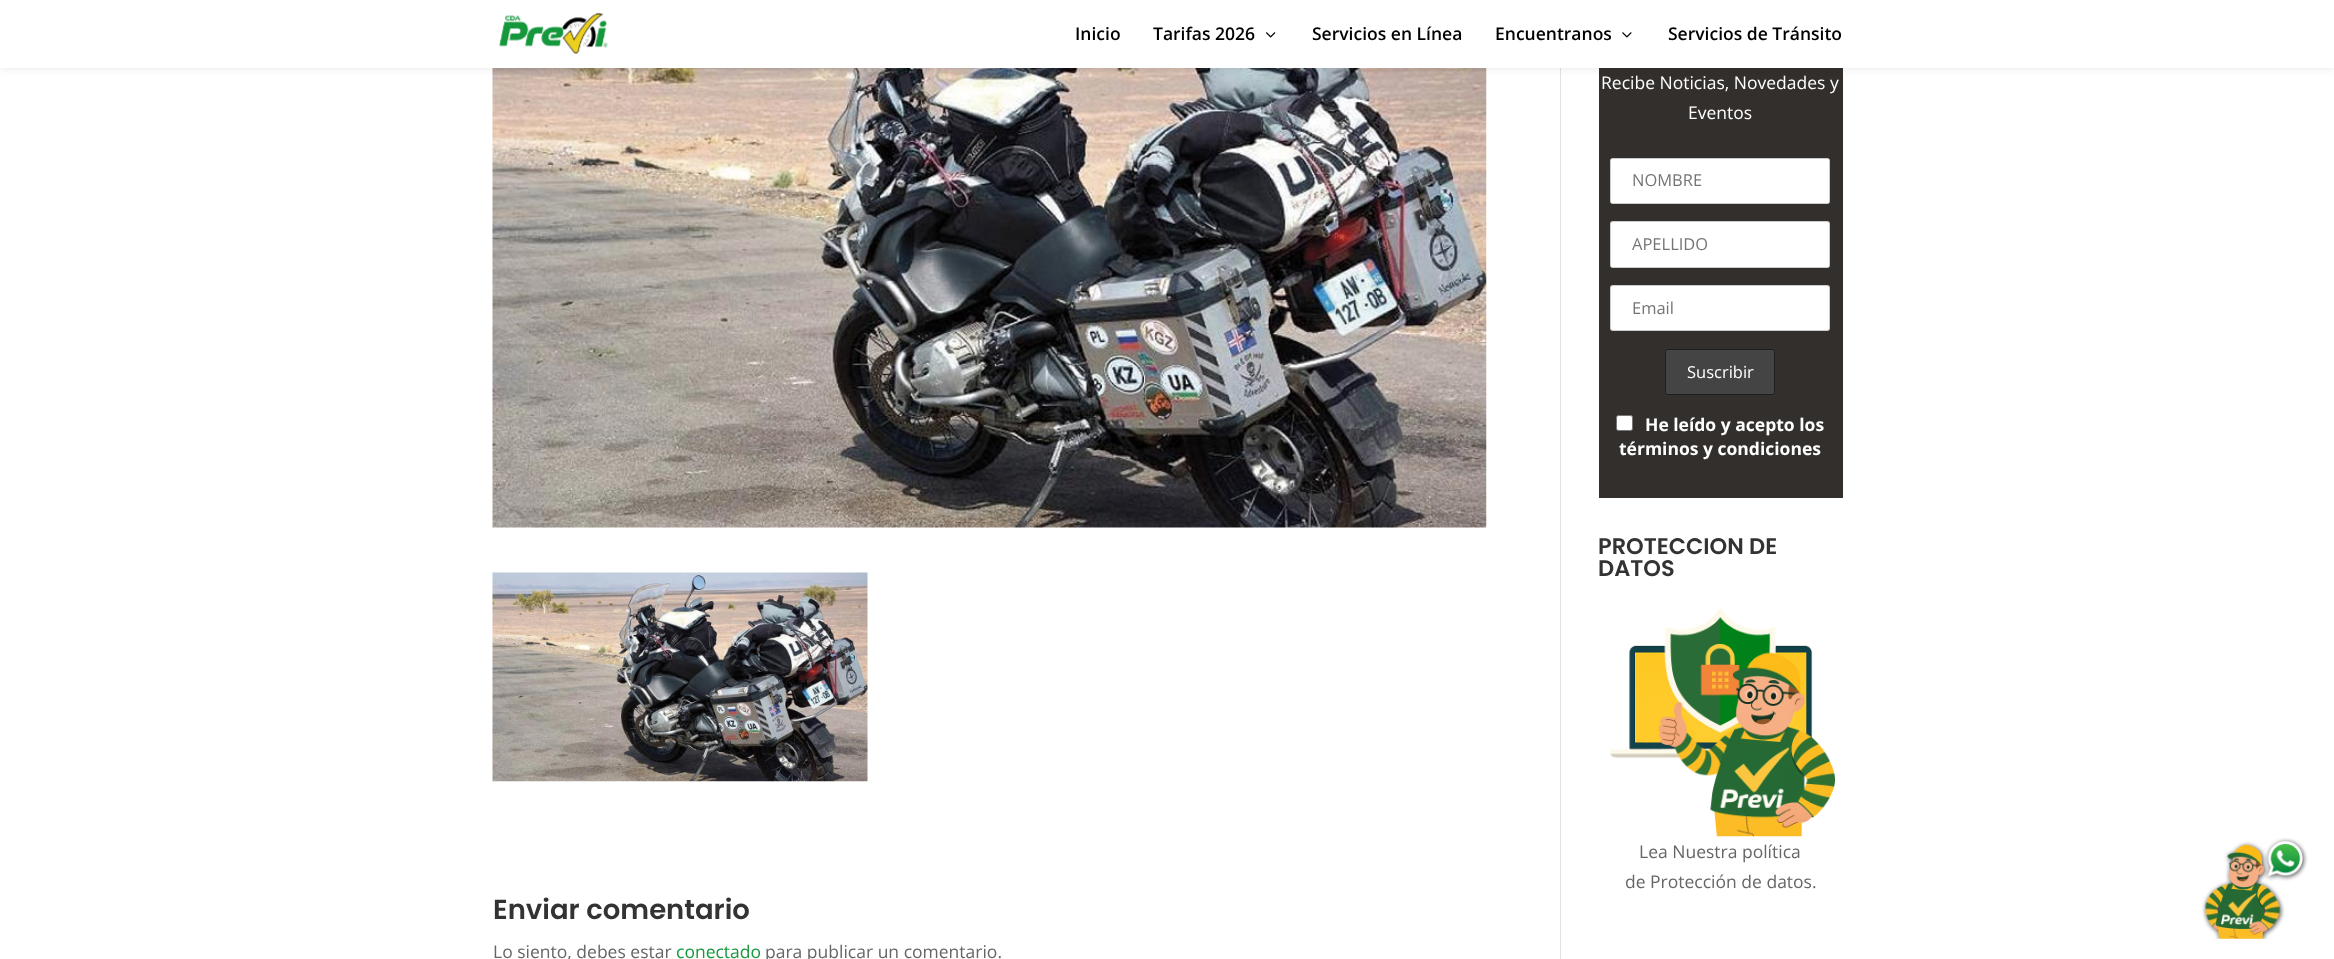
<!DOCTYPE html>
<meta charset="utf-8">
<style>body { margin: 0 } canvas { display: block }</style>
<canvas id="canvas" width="2334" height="959"></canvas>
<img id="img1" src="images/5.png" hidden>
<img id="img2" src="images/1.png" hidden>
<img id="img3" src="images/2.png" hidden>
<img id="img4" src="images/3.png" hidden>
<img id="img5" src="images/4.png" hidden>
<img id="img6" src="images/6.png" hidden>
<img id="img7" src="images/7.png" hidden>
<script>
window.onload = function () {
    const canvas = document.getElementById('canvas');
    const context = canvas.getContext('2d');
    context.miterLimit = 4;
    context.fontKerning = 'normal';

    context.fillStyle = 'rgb(255, 255, 255)';
    context.fillRect(0, 0, 2334, 959);
    context.fillStyle = 'rgb(226, 226, 226)';
    context.fillRect(1560, 68, 1, 891);
    context.fillStyle = 'rgb(51, 47, 44)';
    context.fillRect(1599, 68, 244, 430);
    context.drawImage(document.getElementById('img1'), 492, 68, 995, 460);
    context.fillStyle = 'rgba(0, 0, 0, 0.1)';
    context.filter = 'blur(4.5px)';
    context.beginPath();
    context.rect(0, 0, 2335, 68);
    context.fill();
    context.filter = 'none';
    context.fillStyle = 'rgb(255, 255, 255)';
    context.fillRect(0, 0, 2334, 68);
    context.drawImage(document.getElementById('img2'), 499, 12, 110, 42);
    context.drawImage(document.getElementById('img3'), 1266, 32, 10, 6);
    context.drawImage(document.getElementById('img4'), 1622, 32, 10, 6);
    context.beginPath();
    context.roundRect(1610.5, 158.5, 219, 45, 2);
    context.fill();
    context.strokeStyle = 'rgb(204, 204, 204)';
    context.stroke();
    context.beginPath();
    context.roundRect(1610.5, 221.5, 219, 46, 2);
    context.fill();
    context.stroke();
    context.beginPath();
    context.roundRect(1610.5, 285.5, 219, 45, 2);
    context.fill();
    context.stroke();
    context.fillStyle = 'rgb(68, 68, 68)';
    context.beginPath();
    context.roundRect(1665.5, 349.5, 109, 45, 2);
    context.fill();
    context.strokeStyle = 'rgb(30, 30, 30)';
    context.stroke();
    context.fillStyle = 'rgb(255, 255, 255)';
    context.beginPath();
    context.roundRect(1616.5, 415.5, 16, 15, 2);
    context.fill();
    context.strokeStyle = 'rgb(118, 118, 118)';
    context.stroke();
    context.drawImage(document.getElementById('img5'), 1610, 608, 225, 229);
    context.drawImage(document.getElementById('img6'), 492, 572, 376, 210);
    context.drawImage(document.getElementById('img7'), 2202, 838, 106, 101);
    context.font = '600 17.5px Open Sans';
    context.fillStyle = 'rgb(0, 0, 0)';
    context.fillText('Inicio', 1075, 40);
    context.fillText('Tarifas 2026', 1153, 40);
    context.fillText('Servicios en Línea', 1312, 40);
    context.fillText('Encuentranos', 1495, 40);
    context.fillText('Servicios de Tránsito', 1668, 40);
    context.font = '17.5px Open Sans';
    context.fillStyle = 'rgb(255, 255, 255)';
    context.fillText('Recibe Noticias, Novedades y', 1601, 89);
    context.fillText('Eventos', 1688, 119);
    context.font = '16.5px Open Sans';
    context.fillStyle = 'rgb(117, 117, 117)';
    context.fillText('NOMBRE', 1632, 186);
    context.fillText('APELLIDO', 1632, 250);
    context.fillText('Email', 1632, 314);
    context.fillStyle = 'rgb(255, 255, 255)';
    context.fillText('Suscribir', 1687, 378);
    context.font = 'bold 17.5px Open Sans';
    context.fillText('He leído y acepto los', 1645, 431);
    context.fillText('términos y condiciones', 1619, 455);
    context.font = '600 22.5px Poppins';
    context.fillStyle = 'rgb(51, 51, 51)';
    context.fillText('PROTECCION DE', 1598, 554);
    context.fillText('DATOS', 1598, 576);
    context.font = '17.5px Open Sans';
    context.fillStyle = 'rgb(102, 102, 102)';
    context.fillText('Lea Nuestra política', 1639, 858);
    context.fillText('de Protección de datos.', 1625, 888);
    context.font = '600 27.5px Poppins';
    context.fillStyle = 'rgb(51, 51, 51)';
    context.fillText('Enviar comentario', 493, 919);
    context.font = '17.5px Open Sans';
    context.fillStyle = 'rgb(102, 102, 102)';
    context.fillText('Lo siento, debes estar', 493, 958);
    context.fillStyle = 'rgb(22, 152, 60)';
    context.fillText('conectado', 676, 958);
    context.fillStyle = 'rgb(102, 102, 102)';
    context.fillText('para publicar un comentario.', 765, 958);
};
</script>
